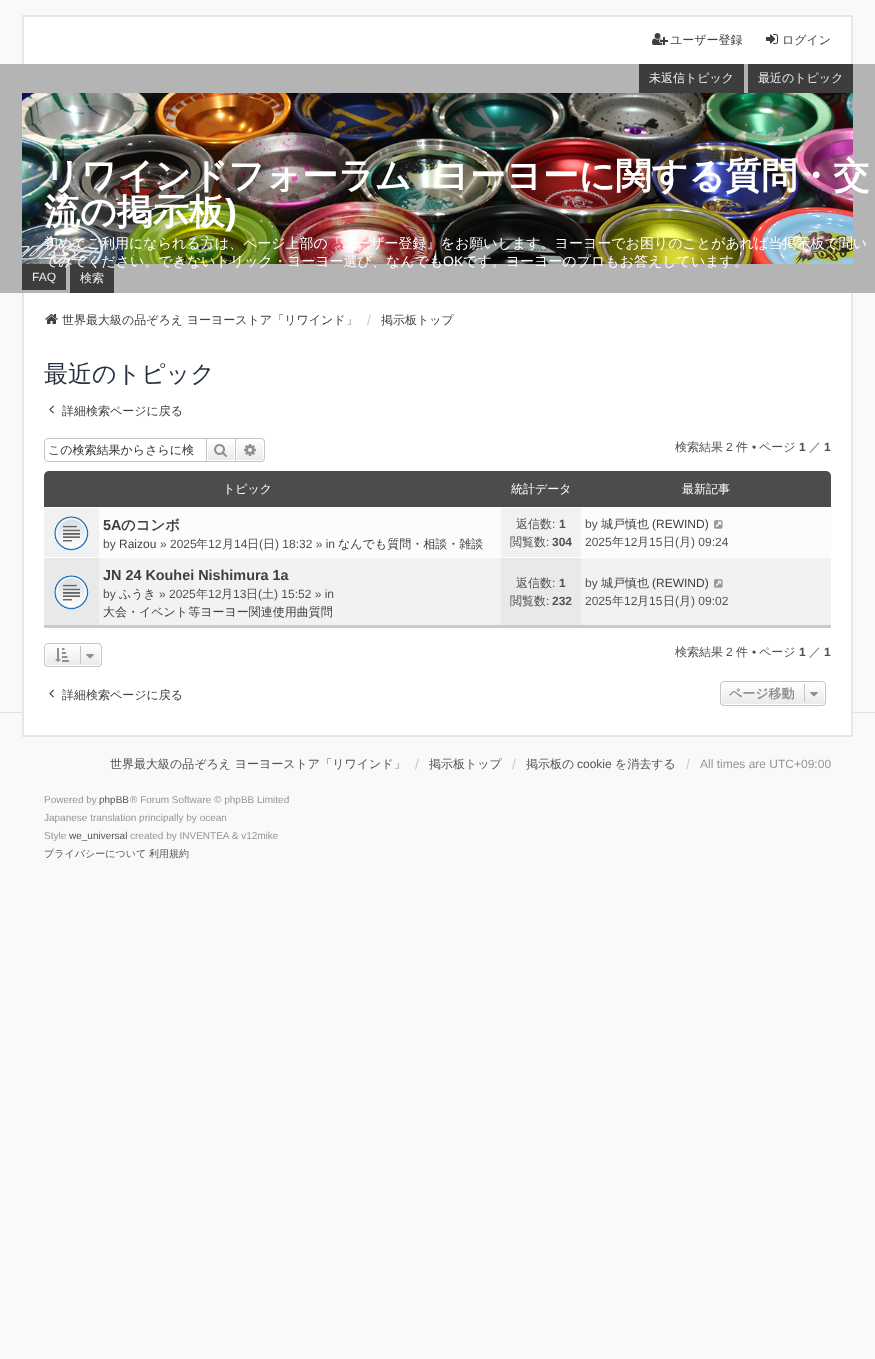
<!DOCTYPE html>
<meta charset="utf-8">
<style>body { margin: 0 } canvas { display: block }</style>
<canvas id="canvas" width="875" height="1359"></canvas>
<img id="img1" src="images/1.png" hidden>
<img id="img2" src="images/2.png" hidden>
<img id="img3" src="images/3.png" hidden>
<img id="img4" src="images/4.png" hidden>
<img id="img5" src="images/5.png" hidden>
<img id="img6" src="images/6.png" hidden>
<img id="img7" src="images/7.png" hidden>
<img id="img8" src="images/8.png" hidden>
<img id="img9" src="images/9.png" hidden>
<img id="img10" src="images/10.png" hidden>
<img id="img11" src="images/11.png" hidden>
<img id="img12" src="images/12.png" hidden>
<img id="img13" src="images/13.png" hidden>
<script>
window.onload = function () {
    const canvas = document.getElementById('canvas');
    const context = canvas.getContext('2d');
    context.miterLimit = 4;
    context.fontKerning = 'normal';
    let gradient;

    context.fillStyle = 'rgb(249, 249, 249)';
    context.fillRect(0, 0, 875, 1359);
    context.fillStyle = 'rgb(255, 255, 255)';
    context.fillRect(24, 17, 827, 47);
    context.fillStyle = 'rgb(231, 231, 231)';
    context.fillRect(22, 15, 831, 2);
    context.fillRect(851, 15, 2, 49);
    context.fillRect(22, 15, 2, 49);
    context.drawImage(document.getElementById('img1'), 652, 33, 16, 12);
    context.drawImage(document.getElementById('img2'), 766, 34, 12, 10);
    context.fillStyle = 'rgb(180, 180, 180)';
    context.fillRect(0, 64, 875, 229);
    context.fillStyle = 'rgb(61, 61, 61)';
    context.fillRect(639, 64, 105, 29);
    context.fillRect(748, 64, 105, 29);
    context.drawImage(document.getElementById('img3'), 22, 93, 831, 171);
    context.fillRect(22, 264, 44, 26);
    context.fillRect(70, 264, 44, 29);
    context.fillStyle = 'rgb(226, 226, 226)';
    context.fillRect(0, 712, 875, 1);
    context.fillStyle = 'rgb(255, 255, 255)';
    context.fillRect(24, 293, 827, 442);
    context.fillStyle = 'rgb(231, 231, 231)';
    context.fillRect(851, 293, 2, 444);
    context.fillRect(22, 735, 831, 2);
    context.fillRect(22, 293, 2, 444);
    context.drawImage(document.getElementById('img4'), 45, 314, 13, 10);
    context.drawImage(document.getElementById('img5'), 49, 405, 5, 9);
    context.fillStyle = 'rgb(199, 195, 191)';
    context.beginPath();
    context.moveTo(48, 438);
    context.lineTo(206, 438);
    context.lineTo(206, 462);
    context.lineTo(48, 462);
    context.bezierCurveTo(46, 462, 44, 460, 44, 458);
    context.lineTo(44, 442);
    context.bezierCurveTo(44, 440, 46, 438, 48, 438);
    context.closePath();
    context.moveTo(48, 439);
    context.lineTo(206, 439);
    context.lineTo(206, 461);
    context.lineTo(48, 461);
    context.bezierCurveTo(46, 461, 45, 460, 45, 458);
    context.lineTo(45, 442);
    context.bezierCurveTo(45, 440, 46, 439, 48, 439);
    context.closePath();
    context.fill('evenodd');
    gradient = context.createLinearGradient(221, 439, 221, 461);
    gradient.addColorStop(0, 'rgb(255, 255, 255)');
    gradient.addColorStop(1, 'rgb(233, 233, 233)');
    context.fillStyle = gradient;
    context.fillRect(208, 442, 26, 18);
    context.strokeStyle = 'rgb(199, 195, 191)';
    context.strokeRect(206.5, 438.5, 29, 23);
    context.drawImage(document.getElementById('img6'), 214, 444, 13, 13);
    gradient = context.createLinearGradient(250, 439, 250, 461);
    gradient.addColorStop(0, 'rgb(255, 255, 255)');
    gradient.addColorStop(1, 'rgb(233, 233, 233)');
    context.fillStyle = gradient;
    context.beginPath();
    context.roundRect(236.5, 439.5, 27, 21, [0, 2.5, 2.5, 0]);
    context.fill();
    context.strokeStyle = 'rgb(255, 255, 255)';
    context.stroke();
    context.fillStyle = 'rgb(199, 195, 191)';
    context.beginPath();
    context.moveTo(236, 438);
    context.lineTo(261, 438);
    context.bezierCurveTo(263, 438, 265, 440, 265, 442);
    context.lineTo(265, 458);
    context.bezierCurveTo(265, 460, 263, 462, 261, 462);
    context.lineTo(236, 462);
    context.closePath();
    context.moveTo(236, 439);
    context.lineTo(261, 439);
    context.bezierCurveTo(262.5, 439, 264, 440.5, 264, 442);
    context.lineTo(264, 458);
    context.bezierCurveTo(264, 459.5, 262.5, 461, 261, 461);
    context.lineTo(236, 461);
    context.closePath();
    context.fill('evenodd');
    context.drawImage(document.getElementById('img7'), 244, 444, 12, 12);
    context.fillStyle = 'rgb(76, 76, 76)';
    context.beginPath();
    context.roundRect(44, 471, 787, 157, [5, 5, 0, 0]);
    context.fill();
    context.fillStyle = 'rgb(202, 202, 202)';
    context.fillRect(44, 625, 787, 3);
    context.fillStyle = 'rgb(250, 252, 254)';
    context.fillRect(99, 508, 732, 49);
    context.fillStyle = 'rgb(255, 255, 255)';
    context.fillRect(44, 507, 787, 1);
    context.fillStyle = 'rgb(241, 241, 241)';
    context.fillRect(44, 508, 55, 49);
    context.drawImage(document.getElementById('img8'), 54, 516, 35, 35);
    context.fillRect(501, 508, 80, 49);
    context.drawImage(document.getElementById('img9'), 714, 520, 9, 9);
    context.fillStyle = 'rgb(242, 242, 242)';
    context.fillRect(99, 558, 732, 67);
    context.fillStyle = 'rgb(255, 255, 255)';
    context.fillRect(44, 557, 787, 1);
    context.fillStyle = 'rgb(233, 233, 233)';
    context.fillRect(44, 558, 55, 67);
    context.drawImage(document.getElementById('img10'), 54, 575, 35, 35);
    context.fillRect(501, 558, 80, 67);
    context.drawImage(document.getElementById('img11'), 714, 579, 9, 9);
    context.save();
    context.beginPath();
    context.roundRect(44, 643, 58, 24, 4);
    context.clip();
    gradient = context.createLinearGradient(73, 644, 73, 666);
    gradient.addColorStop(0, 'rgb(255, 255, 255)');
    gradient.addColorStop(1, 'rgb(233, 233, 233)');
    context.fillStyle = gradient;
    context.fillRect(44, 644, 58, 22);
    context.restore();
    context.beginPath();
    context.roundRect(45.5, 644.5, 55, 21, 2.5);
    context.stroke();
    context.beginPath();
    context.roundRect(44.5, 643.5, 57, 23, 3.5);
    context.strokeStyle = 'rgb(199, 195, 191)';
    context.stroke();
    context.drawImage(document.getElementById('img12'), 55, 648, 14, 14);
    context.fillStyle = 'rgb(199, 195, 191)';
    context.fillRect(80, 646, 1, 18);
    context.drawImage(document.getElementById('img13'), 86, 654, 8, 5);
    context.drawImage(document.getElementById('img5'), 49, 689, 5, 9);
    context.save();
    context.beginPath();
    context.roundRect(720, 681, 106, 25, 4);
    context.clip();
    gradient = context.createLinearGradient(773, 682, 773, 705);
    gradient.addColorStop(0, 'rgb(255, 255, 255)');
    gradient.addColorStop(1, 'rgb(233, 233, 233)');
    context.fillStyle = gradient;
    context.fillRect(720, 682, 106, 23);
    context.restore();
    context.beginPath();
    context.roundRect(721.5, 682.5, 103, 22, 2.5);
    context.strokeStyle = 'rgb(255, 255, 255)';
    context.stroke();
    context.beginPath();
    context.roundRect(720.5, 681.5, 105, 24, 3.5);
    context.strokeStyle = 'rgb(199, 195, 191)';
    context.stroke();
    context.fillRect(804, 684, 1, 18);
    context.drawImage(document.getElementById('img13'), 810, 692, 8, 5);
    context.font = '500 12px WenQuanYi Zen Hei';
    context.fillStyle = 'rgb(63, 63, 63)';
    context.fillText('ユーザー登録', 670, 44);
    context.fillText('ログイン', 782, 44);
    context.fillStyle = 'rgb(238, 238, 238)';
    context.fillText('未返信トピック', 649, 82);
    context.fillText('最近のトピック', 758, 82);
    context.font = 'bold 36px WenQuanYi Zen Hei';
    context.fillStyle = 'rgb(255, 255, 255)';
    context.fillText('リワインドフォーラム', 44, 188);
    context.fillText('ヨーヨーに関する質問・交', 433, 188);
    context.fillText('流の掲示板', 44, 224);
    context.font = 'bold 36px Liberation Sans';
    context.fillText(')', 225, 224);
    context.font = '500 14px WenQuanYi Zen Hei';
    context.fillText('初めてご利用になられる方は、ページ上部の『ユーザー登録』をお願いします。ヨーヨーでお困りのことがあれば当掲示板で聞い', 44, 248);
    context.fillText('てみてください。できないトリック・ヨーヨー選び、なんでも', 44, 266);
    context.font = '14px Liberation Sans';
    context.fillText('OK', 443, 266);
    context.font = '500 14px WenQuanYi Zen Hei';
    context.fillText('です。ヨーヨーのプロもお答えしています。', 463, 266);
    context.font = '12px Liberation Sans';
    context.fillStyle = 'rgb(238, 238, 238)';
    context.fillText('FAQ', 32, 281);
    context.font = '500 12px WenQuanYi Zen Hei';
    context.fillText('検索', 80, 282);
    context.fillStyle = 'rgb(63, 63, 63)';
    context.fillText('世界最大級の品ぞろえ ヨーヨーストア「リワインド」', 62, 324);
    context.font = '14px Liberation Sans';
    context.fillStyle = 'rgb(202, 202, 202)';
    context.fillText('/', 367, 325);
    context.font = '500 12px WenQuanYi Zen Hei';
    context.fillStyle = 'rgb(63, 63, 63)';
    context.fillText('掲示板トップ', 381, 324);
    context.font = '500 24px WenQuanYi Zen Hei';
    context.fillStyle = 'rgb(40, 49, 63)';
    context.fillText('最近のトピック', 44, 382);
    context.font = '500 12px WenQuanYi Zen Hei';
    context.fillStyle = 'rgb(63, 63, 63)';
    context.fillText('詳細検索ページに戻る', 62, 415);
    context.fillStyle = 'rgb(51, 51, 51)';
    context.fillText('この検索結果からさらに検', 48, 454);
    context.fillStyle = 'rgb(82, 82, 82)';
    context.fillText('検索結果', 675, 451);
    context.font = '12px Liberation Sans';
    context.fillText('2', 726, 451);
    context.font = '500 12px WenQuanYi Zen Hei';
    context.fillText('件', 736, 451);
    context.font = '12px Liberation Sans';
    context.fillText('•', 752, 451);
    context.font = '500 12px WenQuanYi Zen Hei';
    context.fillText('ページ', 759, 451);
    context.font = 'bold 12px Liberation Sans';
    context.fillText('1', 799, 451);
    context.font = '500 12px WenQuanYi Zen Hei';
    context.fillText('／', 809, 451);
    context.font = 'bold 12px Liberation Sans';
    context.fillText('1', 824, 451);
    context.font = '500 12px WenQuanYi Zen Hei';
    context.fillStyle = 'rgb(255, 255, 255)';
    context.fillText('トピック', 223, 493);
    context.fillText('統計データ', 511, 493);
    context.fillText('最新記事', 682, 493);
    context.font = 'bold 14.4px Liberation Sans';
    context.fillStyle = 'rgb(63, 63, 63)';
    context.fillText('5A', 103, 530);
    context.font = 'bold 14.4px WenQuanYi Zen Hei';
    context.fillText('のコンボ', 121, 530);
    context.font = '12px Liberation Sans';
    context.fillStyle = 'rgb(82, 82, 82)';
    context.fillText('by', 103, 548);
    context.fillStyle = 'rgb(63, 63, 63)';
    context.fillText('Raizou', 119, 548);
    context.fillStyle = 'rgb(82, 82, 82)';
    context.fillText('» 2025', 160, 548);
    context.font = '500 12px WenQuanYi Zen Hei';
    context.fillText('年', 196, 548);
    context.font = '12px Liberation Sans';
    context.fillText('12', 208, 548);
    context.font = '500 12px WenQuanYi Zen Hei';
    context.fillText('月', 222, 548);
    context.font = '12px Liberation Sans';
    context.fillText('14', 234, 548);
    context.font = '500 12px WenQuanYi Zen Hei';
    context.fillText('日', 247, 548);
    context.font = '12px Liberation Sans';
    context.fillText('(', 259, 548);
    context.font = '500 12px WenQuanYi Zen Hei';
    context.fillText('日', 263, 548);
    context.font = '12px Liberation Sans';
    context.fillText(') 18:32 » in', 275, 548);
    context.font = '500 12px WenQuanYi Zen Hei';
    context.fillStyle = 'rgb(63, 63, 63)';
    context.fillText('なんでも質問・相談・雑談', 338, 548);
    context.fillStyle = 'rgb(82, 82, 82)';
    context.fillText('返信数', 516, 528);
    context.font = '12px Liberation Sans';
    context.fillText(':', 552, 528);
    context.font = 'bold 12px Liberation Sans';
    context.fillText('1', 559, 528);
    context.font = '500 12px WenQuanYi Zen Hei';
    context.fillText('閲覧数', 510, 546);
    context.font = '12px Liberation Sans';
    context.fillText(':', 546, 546);
    context.font = 'bold 12px Liberation Sans';
    context.fillText('304', 552, 546);
    context.font = '12px Liberation Sans';
    context.fillText('by', 585, 528);
    context.font = '500 12px WenQuanYi Zen Hei';
    context.fillStyle = 'rgb(63, 63, 63)';
    context.fillText('城戸慎也', 601, 528);
    context.font = '12px Liberation Sans';
    context.fillText('(REWIND)', 652, 528);
    context.fillStyle = 'rgb(82, 82, 82)';
    context.fillText('2025', 585, 546);
    context.font = '500 12px WenQuanYi Zen Hei';
    context.fillText('年', 612, 546);
    context.font = '12px Liberation Sans';
    context.fillText('12', 624, 546);
    context.font = '500 12px WenQuanYi Zen Hei';
    context.fillText('月', 637, 546);
    context.font = '12px Liberation Sans';
    context.fillText('15', 649, 546);
    context.font = '500 12px WenQuanYi Zen Hei';
    context.fillText('日', 663, 546);
    context.font = '12px Liberation Sans';
    context.fillText('(', 675, 546);
    context.font = '500 12px WenQuanYi Zen Hei';
    context.fillText('月', 679, 546);
    context.font = '12px Liberation Sans';
    context.fillText(') 09:24', 691, 546);
    context.font = 'bold 14.4px Liberation Sans';
    context.fillStyle = 'rgb(63, 63, 63)';
    context.fillText('JN 24 Kouhei Nishimura 1a', 103, 580);
    context.font = '12px Liberation Sans';
    context.fillStyle = 'rgb(82, 82, 82)';
    context.fillText('by', 103, 598);
    context.font = '500 12px WenQuanYi Zen Hei';
    context.fillStyle = 'rgb(63, 63, 63)';
    context.fillText('ふうき', 119, 598);
    context.font = '12px Liberation Sans';
    context.fillStyle = 'rgb(82, 82, 82)';
    context.fillText('» 2025', 159, 598);
    context.font = '500 12px WenQuanYi Zen Hei';
    context.fillText('年', 196, 598);
    context.font = '12px Liberation Sans';
    context.fillText('12', 208, 598);
    context.font = '500 12px WenQuanYi Zen Hei';
    context.fillText('月', 221, 598);
    context.font = '12px Liberation Sans';
    context.fillText('13', 233, 598);
    context.font = '500 12px WenQuanYi Zen Hei';
    context.fillText('日', 246, 598);
    context.font = '12px Liberation Sans';
    context.fillText('(', 258, 598);
    context.font = '500 12px WenQuanYi Zen Hei';
    context.fillText('土', 262, 598);
    context.font = '12px Liberation Sans';
    context.fillText(') 15:52 » in', 274, 598);
    context.font = '500 12px WenQuanYi Zen Hei';
    context.fillStyle = 'rgb(63, 63, 63)';
    context.fillText('大会・イベント等ヨーヨー関連使用曲質問', 103, 616);
    context.fillStyle = 'rgb(82, 82, 82)';
    context.fillText('返信数', 516, 587);
    context.font = '12px Liberation Sans';
    context.fillText(':', 552, 587);
    context.font = 'bold 12px Liberation Sans';
    context.fillText('1', 559, 587);
    context.font = '500 12px WenQuanYi Zen Hei';
    context.fillText('閲覧数', 510, 605);
    context.font = '12px Liberation Sans';
    context.fillText(':', 546, 605);
    context.font = 'bold 12px Liberation Sans';
    context.fillText('232', 552, 605);
    context.font = '12px Liberation Sans';
    context.fillText('by', 585, 587);
    context.font = '500 12px WenQuanYi Zen Hei';
    context.fillStyle = 'rgb(63, 63, 63)';
    context.fillText('城戸慎也', 601, 587);
    context.font = '12px Liberation Sans';
    context.fillText('(REWIND)', 652, 587);
    context.fillStyle = 'rgb(82, 82, 82)';
    context.fillText('2025', 585, 605);
    context.font = '500 12px WenQuanYi Zen Hei';
    context.fillText('年', 612, 605);
    context.font = '12px Liberation Sans';
    context.fillText('12', 624, 605);
    context.font = '500 12px WenQuanYi Zen Hei';
    context.fillText('月', 637, 605);
    context.font = '12px Liberation Sans';
    context.fillText('15', 649, 605);
    context.font = '500 12px WenQuanYi Zen Hei';
    context.fillText('日', 663, 605);
    context.font = '12px Liberation Sans';
    context.fillText('(', 675, 605);
    context.font = '500 12px WenQuanYi Zen Hei';
    context.fillText('月', 679, 605);
    context.font = '12px Liberation Sans';
    context.fillText(') 09:02', 691, 605);
    context.font = '500 12px WenQuanYi Zen Hei';
    context.fillText('検索結果', 675, 656);
    context.font = '12px Liberation Sans';
    context.fillText('2', 726, 656);
    context.font = '500 12px WenQuanYi Zen Hei';
    context.fillText('件', 736, 656);
    context.font = '12px Liberation Sans';
    context.fillText('•', 752, 656);
    context.font = '500 12px WenQuanYi Zen Hei';
    context.fillText('ページ', 759, 656);
    context.font = 'bold 12px Liberation Sans';
    context.fillText('1', 799, 656);
    context.font = '500 12px WenQuanYi Zen Hei';
    context.fillText('／', 809, 656);
    context.font = 'bold 12px Liberation Sans';
    context.fillText('1', 824, 656);
    context.font = '500 12px WenQuanYi Zen Hei';
    context.fillStyle = 'rgb(63, 63, 63)';
    context.fillText('詳細検索ページに戻る', 62, 699);
    context.font = 'bold 13px WenQuanYi Zen Hei';
    context.fillStyle = 'rgb(143, 143, 143)';
    context.fillText('ページ移動', 729, 698);
    context.font = '500 12px WenQuanYi Zen Hei';
    context.fillStyle = 'rgb(82, 82, 82)';
    context.fillText('世界最大級の品ぞろえ ヨーヨーストア「リワインド」', 110, 768);
    context.font = '14px Liberation Sans';
    context.fillStyle = 'rgb(202, 202, 202)';
    context.fillText('/', 415, 769);
    context.font = '500 12px WenQuanYi Zen Hei';
    context.fillStyle = 'rgb(82, 82, 82)';
    context.fillText('掲示板トップ', 429, 768);
    context.font = '14px Liberation Sans';
    context.fillStyle = 'rgb(202, 202, 202)';
    context.fillText('/', 512, 769);
    context.font = '500 12px WenQuanYi Zen Hei';
    context.fillStyle = 'rgb(82, 82, 82)';
    context.fillText('掲示板の', 526, 768);
    context.font = '12px Liberation Sans';
    context.fillText('cookie', 577, 768);
    context.font = '500 12px WenQuanYi Zen Hei';
    context.fillText('を消去する', 615, 768);
    context.font = '14px Liberation Sans';
    context.fillStyle = 'rgb(202, 202, 202)';
    context.fillText('/', 686, 769);
    context.font = '12px Liberation Sans';
    context.fillStyle = 'rgb(149, 149, 149)';
    context.fillText('All times are UTC+09:00', 700, 768);
    context.font = '10px Liberation Sans';
    context.fillText('Powered by', 44, 803);
    context.fillStyle = 'rgb(82, 82, 82)';
    context.fillText('phpBB', 99, 803);
    context.fillStyle = 'rgb(149, 149, 149)';
    context.fillText('® Forum Software © phpBB Limited', 130, 803);
    context.fillText('Japanese translation principally by ocean', 44, 821);
    context.fillText('Style', 44, 839);
    context.fillStyle = 'rgb(82, 82, 82)';
    context.fillText('we_universal', 69, 839);
    context.fillStyle = 'rgb(149, 149, 149)';
    context.fillText('created by INVENTEA & v12mike', 130, 839);
    context.font = '500 10px WenQuanYi Zen Hei';
    context.fillStyle = 'rgb(82, 82, 82)';
    context.fillText('プライバシーについて 利用規約', 44, 857);
};
</script>
